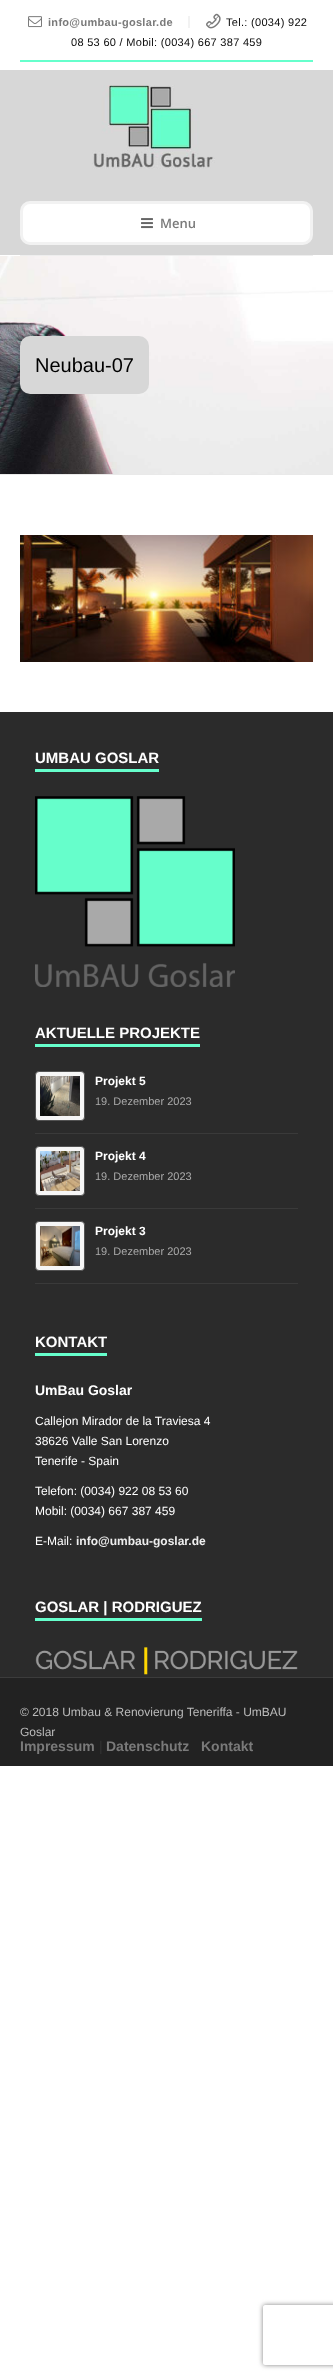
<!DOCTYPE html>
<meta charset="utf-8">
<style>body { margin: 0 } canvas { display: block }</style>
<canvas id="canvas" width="333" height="2379"></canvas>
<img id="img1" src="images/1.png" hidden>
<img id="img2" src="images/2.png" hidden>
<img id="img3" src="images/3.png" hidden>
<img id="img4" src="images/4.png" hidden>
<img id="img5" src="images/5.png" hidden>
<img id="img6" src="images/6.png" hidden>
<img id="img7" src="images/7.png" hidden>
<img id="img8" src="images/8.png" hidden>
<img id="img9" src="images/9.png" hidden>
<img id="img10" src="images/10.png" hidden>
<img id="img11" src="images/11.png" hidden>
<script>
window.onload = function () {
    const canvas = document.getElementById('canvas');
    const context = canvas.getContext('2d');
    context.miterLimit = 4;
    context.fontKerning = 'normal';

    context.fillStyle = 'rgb(255, 255, 255)';
    context.fillRect(0, 0, 333, 2379);
    context.fillStyle = 'rgb(102, 255, 204)';
    context.fillRect(20, 60, 293, 2);
    context.drawImage(document.getElementById('img1'), 28, 16, 14, 12);
    context.fillStyle = 'rgb(242, 242, 242)';
    context.fillRect(188, 16, 2, 12);
    context.drawImage(document.getElementById('img2'), 206, 13, 15, 16);
    context.fillStyle = 'rgb(215, 215, 215)';
    context.fillRect(0, 70, 333, 185);
    context.drawImage(document.getElementById('img3'), 92, 85, 123, 84);
    context.fillStyle = 'rgb(255, 255, 255)';
    context.beginPath();
    context.roundRect(21.5, 202.5, 290, 41, 8.5);
    context.fill();
    context.strokeStyle = 'rgb(242, 242, 242)';
    context.lineWidth = 3;
    context.stroke();
    context.drawImage(document.getElementById('img4'), 141, 218, 12, 11);
    context.fillStyle = 'rgb(238, 238, 238)';
    context.fillRect(20, 255, 293, 1);
    context.drawImage(document.getElementById('img5'), 0, 256, 333, 218);
    context.fillStyle = 'rgb(233, 233, 233)';
    context.fillRect(0, 474, 333, 1);
    context.fillStyle = 'rgb(215, 215, 215)';
    context.beginPath();
    context.roundRect(20, 336, 129, 58, 10);
    context.fill();
    context.drawImage(document.getElementById('img6'), 20, 535, 293, 127);
    context.fillStyle = 'rgb(43, 43, 43)';
    context.fillRect(0, 712, 333, 965);
    context.fillStyle = 'rgb(102, 255, 204)';
    context.fillRect(35, 769, 124, 3);
    context.drawImage(document.getElementById('img7'), 35, 796, 200, 191);
    context.fillRect(35, 1044, 165, 3);
    context.fillStyle = 'rgb(58, 58, 58)';
    context.fillRect(35, 1133, 263, 1);
    context.fillStyle = 'rgb(246, 246, 246)';
    context.beginPath();
    context.roundRect(35.5, 1071.5, 49, 49, 3.5);
    context.fill();
    context.strokeStyle = 'rgb(83, 83, 83)';
    context.lineWidth = 1;
    context.stroke();
    context.drawImage(document.getElementById('img8'), 40, 1076, 40, 40);
    context.fillStyle = 'rgb(58, 58, 58)';
    context.fillRect(35, 1208, 263, 1);
    context.fillStyle = 'rgb(246, 246, 246)';
    context.beginPath();
    context.roundRect(35.5, 1146.5, 49, 49, 3.5);
    context.fill();
    context.stroke();
    context.drawImage(document.getElementById('img9'), 40, 1151, 40, 40);
    context.fillStyle = 'rgb(58, 58, 58)';
    context.fillRect(35, 1283, 263, 1);
    context.fillStyle = 'rgb(246, 246, 246)';
    context.beginPath();
    context.roundRect(35.5, 1221.5, 49, 49, 3.5);
    context.fill();
    context.stroke();
    context.drawImage(document.getElementById('img10'), 40, 1226, 40, 40);
    context.fillStyle = 'rgb(102, 255, 204)';
    context.fillRect(35, 1353, 72, 3);
    context.fillRect(35, 1618, 167, 3);
    context.drawImage(document.getElementById('img11'), 35, 1647, 263, 28);
    context.fillStyle = 'rgb(34, 34, 34)';
    context.fillRect(0, 1678, 333, 88);
    context.fillStyle = 'rgb(60, 60, 60)';
    context.fillRect(0, 1677, 333, 1);
    context.save();
    context.beginPath();
    context.moveTo(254, 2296);
    context.lineTo(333, 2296);
    context.lineTo(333, 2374);
    context.lineTo(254, 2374);
    context.closePath();
    context.moveTo(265, 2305);
    context.lineTo(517, 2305);
    context.bezierCurveTo(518, 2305, 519, 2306, 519, 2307);
    context.lineTo(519, 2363);
    context.bezierCurveTo(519, 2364, 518, 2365, 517, 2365);
    context.lineTo(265, 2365);
    context.bezierCurveTo(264, 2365, 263, 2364, 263, 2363);
    context.lineTo(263, 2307);
    context.bezierCurveTo(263, 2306, 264, 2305, 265, 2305);
    context.closePath();
    context.clip('evenodd');
    context.fillStyle = 'rgb(128, 128, 128)';
    context.filter = 'blur(2.5px)';
    context.beginPath();
    context.roundRect(263, 2305, 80, 60, 2);
    context.fill();
    context.filter = 'none';
    context.restore();
    context.letterSpacing = '0.3px';
    context.font = 'bold 11px Liberation Sans';
    context.fillStyle = 'rgb(122, 122, 122)';
    context.fillText('info@umbau-goslar.de', 48, 26);
    context.font = '11px Liberation Sans';
    context.fillStyle = 'rgb(10, 10, 10)';
    context.fillText('Tel.: (0034) 922', 226, 26);
    context.fillText('08 53 60 / Mobil: (0034) 667 387 459', 71, 46);
    context.letterSpacing = '0px';
    context.font = '600 13px Open Sans';
    context.fillStyle = 'rgb(122, 122, 122)';
    context.fillText('Menu', 160, 228);
    context.font = '20px Liberation Sans';
    context.fillStyle = 'rgb(0, 0, 0)';
    context.fillText('Neubau-07', 35, 372);
    context.font = 'bold 15px Liberation Sans';
    context.fillStyle = 'rgb(255, 255, 255)';
    context.fillText('UMBAU GOSLAR', 35, 763);
    context.fillText('AKTUELLE PROJEKTE', 35, 1038);
    context.font = 'bold 12px Liberation Sans';
    context.fillText('Projekt 5', 95, 1085);
    context.font = '11px Liberation Sans';
    context.fillStyle = 'rgb(170, 170, 170)';
    context.fillText('19. Dezember 2023', 95, 1105);
    context.font = 'bold 12px Liberation Sans';
    context.fillStyle = 'rgb(255, 255, 255)';
    context.fillText('Projekt 4', 95, 1160);
    context.font = '11px Liberation Sans';
    context.fillStyle = 'rgb(170, 170, 170)';
    context.fillText('19. Dezember 2023', 95, 1180);
    context.font = 'bold 12px Liberation Sans';
    context.fillStyle = 'rgb(255, 255, 255)';
    context.fillText('Projekt 3', 95, 1235);
    context.font = '11px Liberation Sans';
    context.fillStyle = 'rgb(170, 170, 170)';
    context.fillText('19. Dezember 2023', 95, 1255);
    context.font = 'bold 15px Liberation Sans';
    context.fillStyle = 'rgb(255, 255, 255)';
    context.fillText('KONTAKT', 35, 1347);
    context.font = 'bold 14px Liberation Sans';
    context.fillText('UmBau Goslar', 35, 1395);
    context.font = '12px Liberation Sans';
    context.fillText('Callejon Mirador de la Traviesa 4', 35, 1425);
    context.fillText('38626 Valle San Lorenzo', 35, 1445);
    context.fillText('Tenerife - Spain', 35, 1465);
    context.fillText('Telefon: (0034) 922 08 53 60', 35, 1495);
    context.fillText('Mobil: (0034) 667 387 459', 35, 1515);
    context.fillText('E-Mail:', 35, 1545);
    context.font = 'bold 12px Liberation Sans';
    context.fillStyle = 'rgb(238, 238, 238)';
    context.fillText('info@umbau-goslar.de', 76, 1545);
    context.font = 'bold 15px Liberation Sans';
    context.fillStyle = 'rgb(255, 255, 255)';
    context.fillText('GOSLAR | RODRIGUEZ', 35, 1612);
    context.font = '12px Liberation Sans';
    context.fillStyle = 'rgb(187, 187, 187)';
    context.fillText('© 2018 Umbau & Renovierung Teneriffa - UmBAU', 20, 1716);
    context.fillText('Goslar', 20, 1736);
    context.font = 'bold 14px Liberation Sans';
    context.fillStyle = 'rgb(122, 122, 122)';
    context.fillText('Impressum', 20, 1751);
    context.font = '14px Liberation Sans';
    context.fillStyle = 'rgb(51, 51, 51)';
    context.fillText('|', 99, 1751);
    context.font = 'bold 14px Liberation Sans';
    context.fillStyle = 'rgb(122, 122, 122)';
    context.fillText('Datenschutz', 106, 1751);
    context.fillText('Kontakt', 201, 1751);
};
</script>
